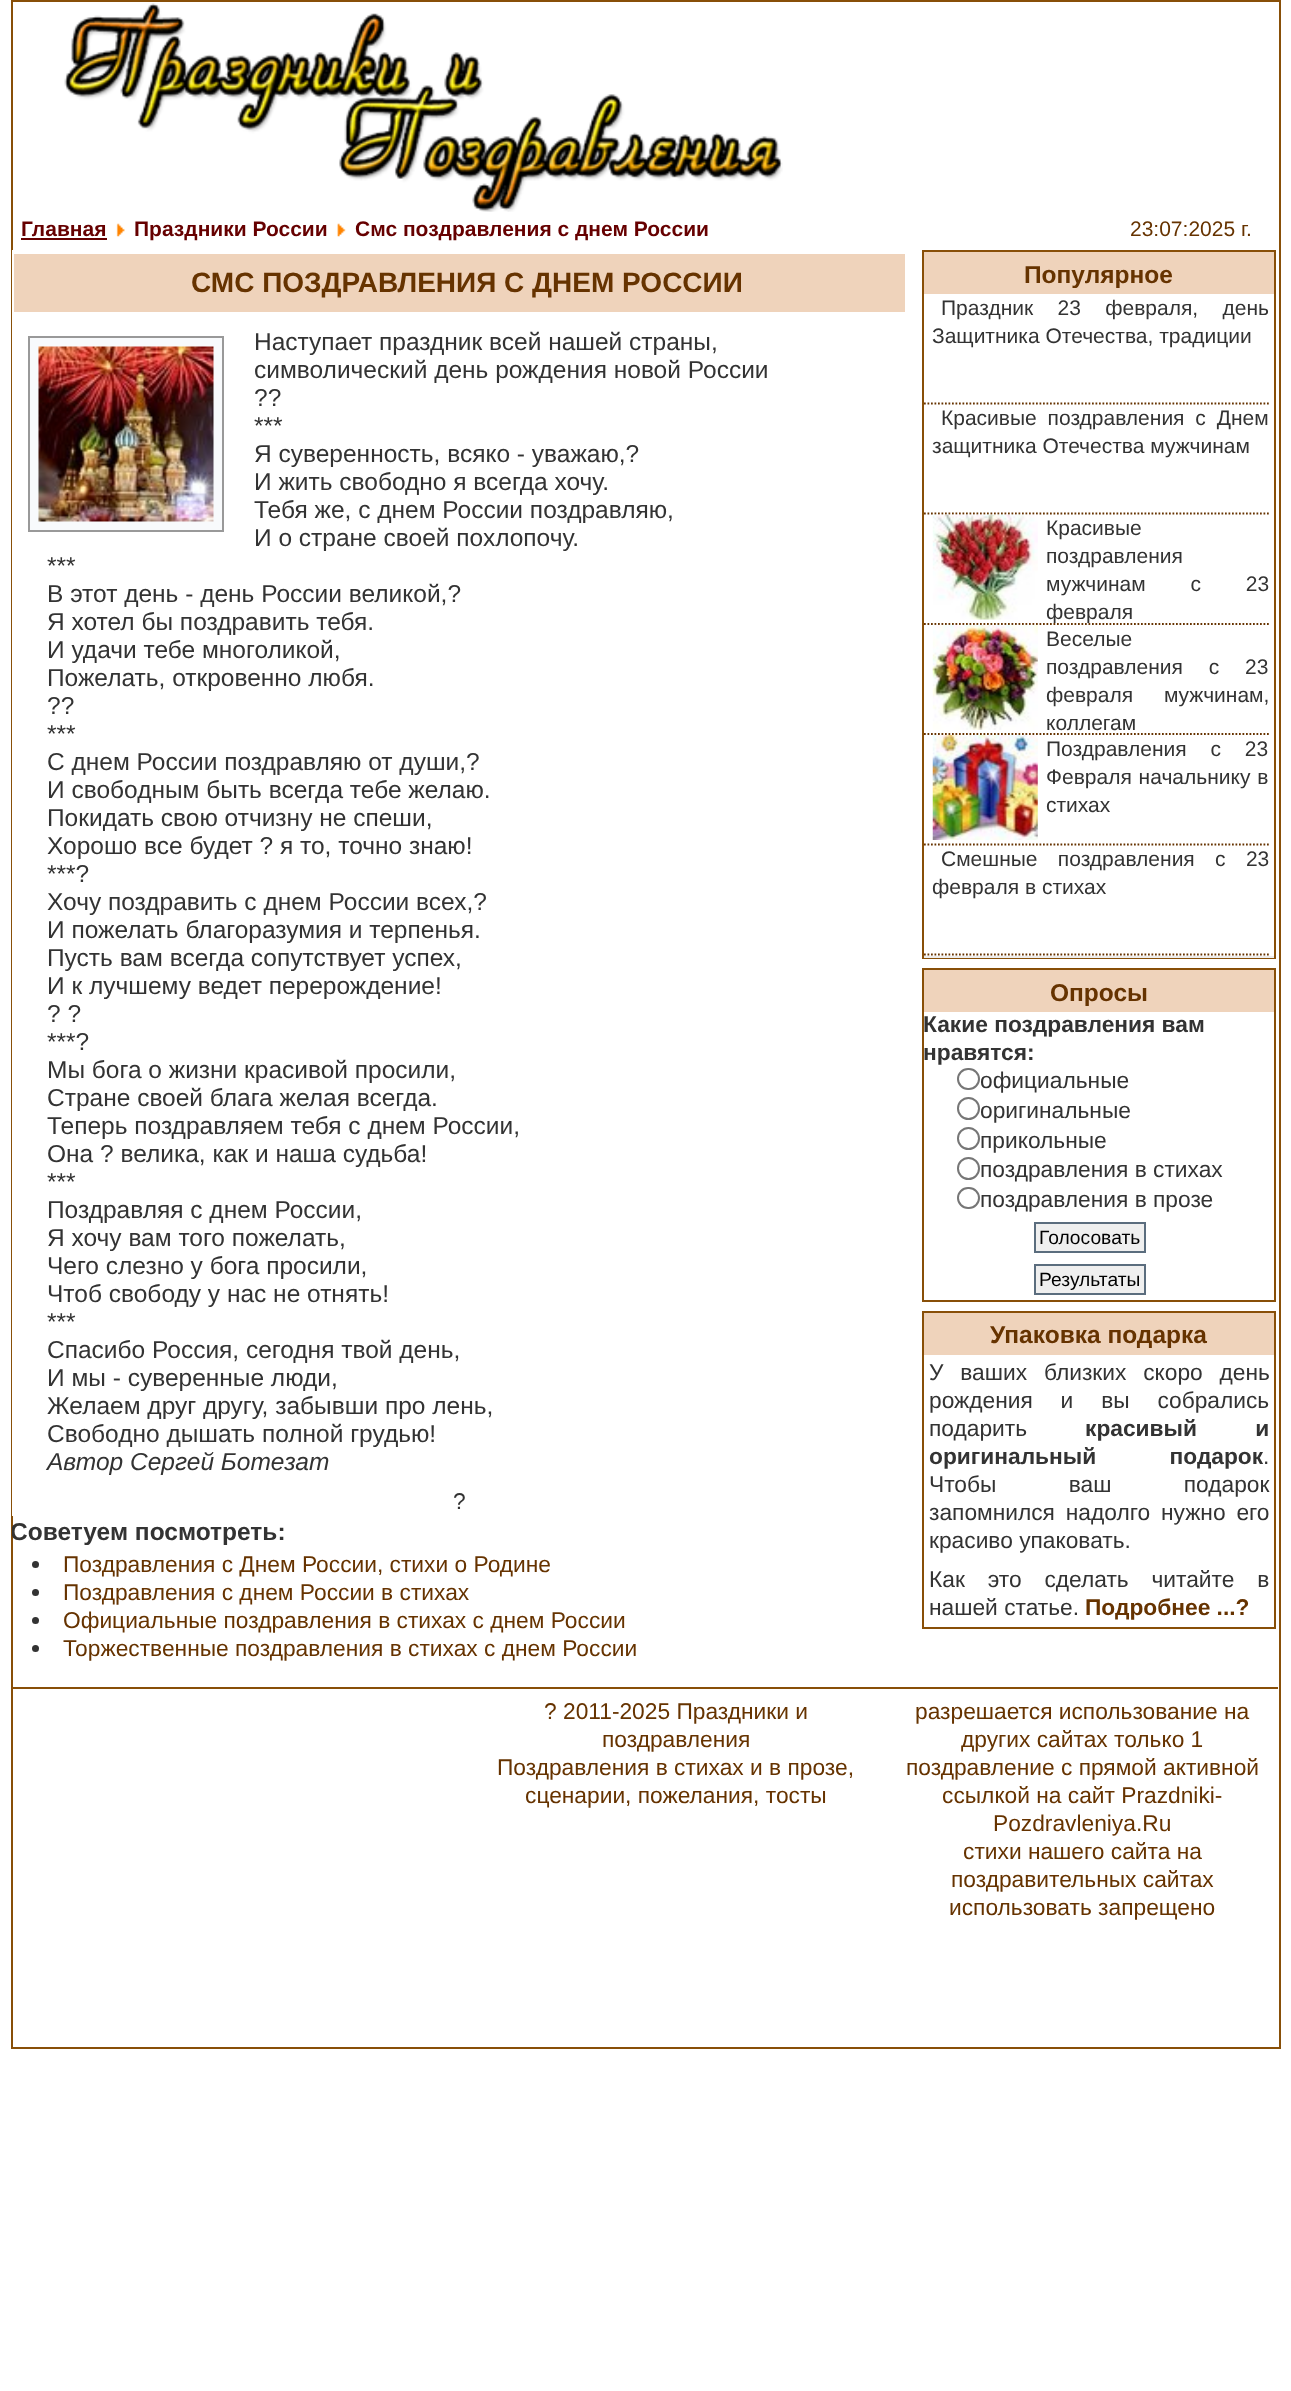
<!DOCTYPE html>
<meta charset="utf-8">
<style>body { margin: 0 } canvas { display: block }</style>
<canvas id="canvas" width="1291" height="2391"></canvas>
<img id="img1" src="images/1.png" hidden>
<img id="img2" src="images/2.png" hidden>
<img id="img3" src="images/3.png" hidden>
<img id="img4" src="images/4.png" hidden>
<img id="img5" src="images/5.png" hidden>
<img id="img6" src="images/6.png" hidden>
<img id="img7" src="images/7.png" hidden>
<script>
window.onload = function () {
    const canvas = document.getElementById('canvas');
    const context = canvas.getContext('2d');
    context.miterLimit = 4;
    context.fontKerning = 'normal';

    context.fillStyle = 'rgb(255, 255, 255)';
    context.fillRect(0, 0, 1291, 2391);
    context.strokeStyle = 'rgb(136, 79, 8)';
    context.lineWidth = 2;
    context.strokeRect(12, 1, 1268, 2047);
    context.drawImage(document.getElementById('img1'), 64, 3, 719, 209);
    context.fillStyle = 'rgb(102, 0, 0)';
    context.fillRect(21, 238, 86, 2);
    context.drawImage(document.getElementById('img2'), 116, 223, 9, 14);
    context.drawImage(document.getElementById('img3'), 337, 223, 9, 14);
    context.fillStyle = 'rgb(255, 255, 255)';
    context.fillRect(12, 250, 1, 1266);
    context.fillStyle = 'rgb(239, 211, 187)';
    context.fillRect(14, 254, 891, 58);
    context.fillStyle = 'rgb(248, 250, 252)';
    context.beginPath();
    context.rect(29, 337, 194, 194);
    context.fill();
    context.strokeStyle = 'rgb(153, 153, 153)';
    context.stroke();
    context.drawImage(document.getElementById('img4'), 38, 346, 176, 176);
    context.fillStyle = 'rgb(51, 51, 51)';
    context.beginPath();
    context.arc(35.5, 1564.5, 3.5, 0, 2 * Math.PI);
    context.fill();
    context.beginPath();
    context.arc(35.5, 1592.5, 3.5, 0, 2 * Math.PI);
    context.fill();
    context.beginPath();
    context.arc(35.5, 1620.5, 3.5, 0, 2 * Math.PI);
    context.fill();
    context.beginPath();
    context.arc(35.5, 1648.5, 3.5, 0, 2 * Math.PI);
    context.fill();
    context.strokeStyle = 'rgb(136, 79, 8)';
    context.strokeRect(923, 251, 352, 707);
    context.fillStyle = 'rgb(239, 211, 187)';
    context.fillRect(924, 252, 350, 42);
    context.beginPath();
    context.moveTo(924, 403.5);
    context.lineTo(1269, 403.5);
    context.strokeStyle = 'rgb(102, 51, 0)';
    context.lineWidth = 1.8;
    context.setLineDash([1.75, 1.75]);
    context.stroke();
    context.beginPath();
    context.moveTo(924, 513.5);
    context.lineTo(1269, 513.5);
    context.stroke();
    context.beginPath();
    context.moveTo(924, 624);
    context.lineTo(1269, 624);
    context.stroke();
    context.drawImage(document.getElementById('img5'), 932, 514, 106, 106);
    context.beginPath();
    context.moveTo(924, 734);
    context.lineTo(1269, 734);
    context.stroke();
    context.drawImage(document.getElementById('img6'), 932, 624, 106, 106);
    context.beginPath();
    context.moveTo(924, 844.5);
    context.lineTo(1269, 844.5);
    context.stroke();
    context.drawImage(document.getElementById('img7'), 932, 735, 106, 105);
    context.beginPath();
    context.moveTo(924, 954.5);
    context.lineTo(1269, 954.5);
    context.stroke();
    context.fillStyle = 'rgb(238, 238, 238)';
    context.fillRect(924, 956, 350, 2);
    context.strokeStyle = 'rgb(136, 79, 8)';
    context.lineWidth = 2;
    context.setLineDash([]);
    context.strokeRect(923, 969, 352, 332);
    context.fillStyle = 'rgb(239, 211, 187)';
    context.fillRect(924, 970, 350, 42);
    context.beginPath();
    context.roundRect(958, 1069, 21, 20, 10);
    context.strokeStyle = 'rgb(118, 118, 118)';
    context.stroke();
    context.beginPath();
    context.arc(968.5, 1108.5, 10.5, 0, 2 * Math.PI);
    context.stroke();
    context.beginPath();
    context.arc(968.5, 1138.5, 10.5, 0, 2 * Math.PI);
    context.stroke();
    context.beginPath();
    context.arc(968.5, 1168.5, 10.5, 0, 2 * Math.PI);
    context.stroke();
    context.beginPath();
    context.roundRect(958, 1188, 21, 20, 10);
    context.stroke();
    context.fillStyle = 'rgb(239, 239, 239)';
    context.beginPath();
    context.rect(1035, 1223, 110, 29);
    context.fill();
    context.strokeStyle = 'rgb(91, 109, 126)';
    context.stroke();
    context.beginPath();
    context.rect(1035, 1265, 110, 29);
    context.fill();
    context.stroke();
    context.strokeStyle = 'rgb(136, 79, 8)';
    context.strokeRect(923, 1312, 352, 316);
    context.fillStyle = 'rgb(239, 211, 187)';
    context.fillRect(924, 1313, 350, 42);
    context.fillStyle = 'rgb(136, 79, 8)';
    context.fillRect(12, 1687, 1266, 2);
    context.font = 'bold 21px Liberation Sans';
    context.fillStyle = 'rgb(102, 0, 0)';
    context.fillText('Главная', 21, 236);
    context.fillText('Праздники России', 134, 236);
    context.fillText('Смс поздравления с днем России', 355, 236);
    context.font = '21px Liberation Sans';
    context.fillStyle = 'rgb(102, 51, 0)';
    context.fillText('23:07:2025 г.', 1130, 236);
    context.font = 'bold 28px Liberation Sans';
    context.fillText('СМС ПОЗДРАВЛЕНИЯ С ДНЕМ РОССИИ', 191, 292);
    context.font = '24.5px Liberation Sans';
    context.fillStyle = 'rgb(51, 51, 51)';
    context.fillText('Наступает праздник всей нашей страны,', 254, 350);
    context.fillText('символический день рождения новой России', 254, 378);
    context.fillText('??', 254, 406);
    context.fillText('***', 254, 434);
    context.fillText('Я суверенность, всяко - уважаю,?', 254, 462);
    context.fillText('И жить свободно я всегда хочу.', 254, 490);
    context.fillText('Тебя же, с днем России поздравляю,', 254, 518);
    context.fillText('И о стране своей похлопочу.', 254, 546);
    context.fillText('***', 47, 574);
    context.fillText('В этот день - день России великой,?', 47, 602);
    context.fillText('Я хотел бы поздравить тебя.', 47, 630);
    context.fillText('И удачи тебе многоликой,', 47, 658);
    context.fillText('Пожелать, откровенно любя.', 47, 686);
    context.fillText('??', 47, 714);
    context.fillText('***', 47, 742);
    context.fillText('С днем России поздравляю от души,?', 47, 770);
    context.fillText('И свободным быть всегда тебе желаю.', 47, 798);
    context.fillText('Покидать свою отчизну не спеши,', 47, 826);
    context.fillText('Хорошо все будет ? я то, точно знаю!', 47, 854);
    context.fillText('***?', 47, 882);
    context.fillText('Хочу поздравить с днем России всех,?', 47, 910);
    context.fillText('И пожелать благоразумия и терпенья.', 47, 938);
    context.fillText('Пусть вам всегда сопутствует успех,', 47, 966);
    context.fillText('И к лучшему ведет перерождение!', 47, 994);
    context.fillText('? ?', 47, 1022);
    context.fillText('***?', 47, 1050);
    context.fillText('Мы бога о жизни красивой просили,', 47, 1078);
    context.fillText('Стране своей блага желая всегда.', 47, 1106);
    context.fillText('Теперь поздравляем тебя с днем России,', 47, 1134);
    context.fillText('Она ? велика, как и наша судьба!', 47, 1162);
    context.fillText('***', 47, 1190);
    context.fillText('Поздравляя с днем России,', 47, 1218);
    context.fillText('Я хочу вам того пожелать,', 47, 1246);
    context.fillText('Чего слезно у бога просили,', 47, 1274);
    context.fillText('Чтоб свободу у нас не отнять!', 47, 1302);
    context.fillText('***', 47, 1330);
    context.fillText('Спасибо Россия, сегодня твой день,', 47, 1358);
    context.fillText('И мы - суверенные люди,', 47, 1386);
    context.fillText('Желаем друг другу, забывши про лень,', 47, 1414);
    context.fillText('Свободно дышать полной грудью!', 47, 1442);
    context.font = 'italic 24.5px Liberation Sans';
    context.fillText('Автор Сергей Ботезат', 47, 1470);
    context.font = '22.75px Liberation Sans';
    context.fillText('?', 453, 1509);
    context.save();
    context.beginPath();
    context.rect(12, 250, 1266, 1437);
    context.clip();
    context.font = 'bold 24.5px Liberation Sans';
    context.fillText('Советуем посмотреть:', 10, 1540);
    context.restore();
    context.fillStyle = 'rgb(102, 51, 0)';
    context.fillText('Поздравления с Днем России, стихи о Родине', 63, 1572);
    context.fillText('Поздравления с днем России в стихах', 63, 1600);
    context.fillText('Официальные поздравления в стихах с днем России', 63, 1628);
    context.fillText('Торжественные поздравления в стихах с днем России', 63, 1656);
    context.font = 'bold 24.5px Liberation Sans';
    context.fillText('Популярное', 1024, 283);
    context.wordSpacing = '18.5px';
    context.font = '21px Liberation Sans';
    context.fillStyle = 'rgb(51, 51, 51)';
    context.fillText('Праздник 23 февраля, день', 941, 315);
    context.wordSpacing = '0px';
    context.fillText('Защитника Отечества, традиции', 932, 343);
    context.wordSpacing = '5px';
    context.fillText('Красивые поздравления с Днем', 941, 425);
    context.wordSpacing = '0px';
    context.fillText('защитника Отечества мужчинам', 932, 453);
    context.fillText('Красивые', 1046, 535);
    context.fillText('поздравления', 1046, 563);
    context.wordSpacing = '39px';
    context.fillText('мужчинам с 23', 1046, 591);
    context.save();
    context.beginPath();
    context.rect(924, 515, 345, 108);
    context.clip();
    context.wordSpacing = '0px';
    context.fillText('февраля', 1046, 619);
    context.restore();
    context.wordSpacing = '0px';
    context.fillText('Веселые', 1046, 646);
    context.wordSpacing = '20px';
    context.fillText('поздравления с 23', 1046, 674);
    context.wordSpacing = '25px';
    context.fillText('февраля мужчинам,', 1046, 702);
    context.wordSpacing = '0px';
    context.fillText('коллегам', 1046, 730);
    context.wordSpacing = '18px';
    context.fillText('Поздравления с 23', 1046, 756);
    context.wordSpacing = '1px';
    context.fillText('Февраля начальнику в', 1046, 784);
    context.wordSpacing = '0px';
    context.fillText('стихах', 1046, 812);
    context.wordSpacing = '14.5px';
    context.fillText('Смешные поздравления с 23', 941, 866);
    context.wordSpacing = '0px';
    context.fillText('февраля в стихах', 932, 894);
    context.font = 'bold 24.5px Liberation Sans';
    context.fillStyle = 'rgb(102, 51, 0)';
    context.fillText('Опросы', 1050, 1001);
    context.font = 'bold 22.75px Liberation Sans';
    context.fillStyle = 'rgb(51, 51, 51)';
    context.fillText('Какие поздравления вам', 923, 1032);
    context.fillText('нравятся:', 923, 1060);
    context.font = '22.75px Liberation Sans';
    context.fillText('официальные', 980, 1088);
    context.fillText('оригинальные', 980, 1118);
    context.fillText('прикольные', 980, 1148);
    context.fillText('поздравления в стихах', 980, 1177);
    context.fillText('поздравления в прозе', 980, 1207);
    context.font = '19.25px Liberation Sans';
    context.fillStyle = 'rgb(0, 0, 0)';
    context.fillText('Голосовать', 1039, 1244);
    context.fillText('Результаты', 1039, 1286);
    context.font = 'bold 24.5px Liberation Sans';
    context.fillStyle = 'rgb(102, 51, 0)';
    context.fillText('Упаковка подарка', 990, 1343);
    context.wordSpacing = '10.5px';
    context.font = '22.75px Liberation Sans';
    context.fillStyle = 'rgb(51, 51, 51)';
    context.fillText('У ваших близких скоро день', 929, 1380);
    context.wordSpacing = '21.5px';
    context.fillText('рождения и вы собрались', 929, 1408);
    context.wordSpacing = '0px';
    context.fillText('подарить', 929, 1436);
    context.wordSpacing = '52px';
    context.font = 'bold 22.75px Liberation Sans';
    context.fillText('красивый и', 1085, 1436);
    context.wordSpacing = '67px';
    context.fillText('оригинальный подарок', 929, 1464);
    context.wordSpacing = '0px';
    context.font = '22.75px Liberation Sans';
    context.fillText('.', 1263, 1464);
    context.wordSpacing = '66px';
    context.fillText('Чтобы ваш подарок', 929, 1492);
    context.wordSpacing = '4.5px';
    context.fillText('запомнился надолго нужно его', 929, 1520);
    context.wordSpacing = '0px';
    context.fillText('красиво упаковать.', 929, 1548);
    context.wordSpacing = '16.5px';
    context.fillText('Как это сделать читайте в', 929, 1587);
    context.wordSpacing = '0px';
    context.fillText('нашей статье.', 929, 1615);
    context.font = 'bold 22.75px Liberation Sans';
    context.fillStyle = 'rgb(102, 51, 0)';
    context.fillText('Подробнее ...?', 1085, 1615);
    context.font = '22.75px Liberation Sans';
    context.fillText('? 2011-2025 Праздники и', 544, 1719);
    context.fillText('поздравления', 602, 1747);
    context.fillText('Поздравления в стихах и в прозе,', 497, 1775);
    context.fillText('сценарии, пожелания, тосты', 525, 1803);
    context.fillText('разрешается использование на', 915, 1719);
    context.fillText('других сайтах только 1', 961, 1747);
    context.fillText('поздравление с прямой активной', 906, 1775);
    context.fillText('ссылкой на сайт Prazdniki-', 942, 1803);
    context.fillText('Pozdravleniya.Ru', 993, 1831);
    context.fillText('стихи нашего сайта на', 963, 1859);
    context.fillText('поздравительных сайтах', 951, 1887);
    context.fillText('использовать запрещено', 949, 1915);
};
</script>
